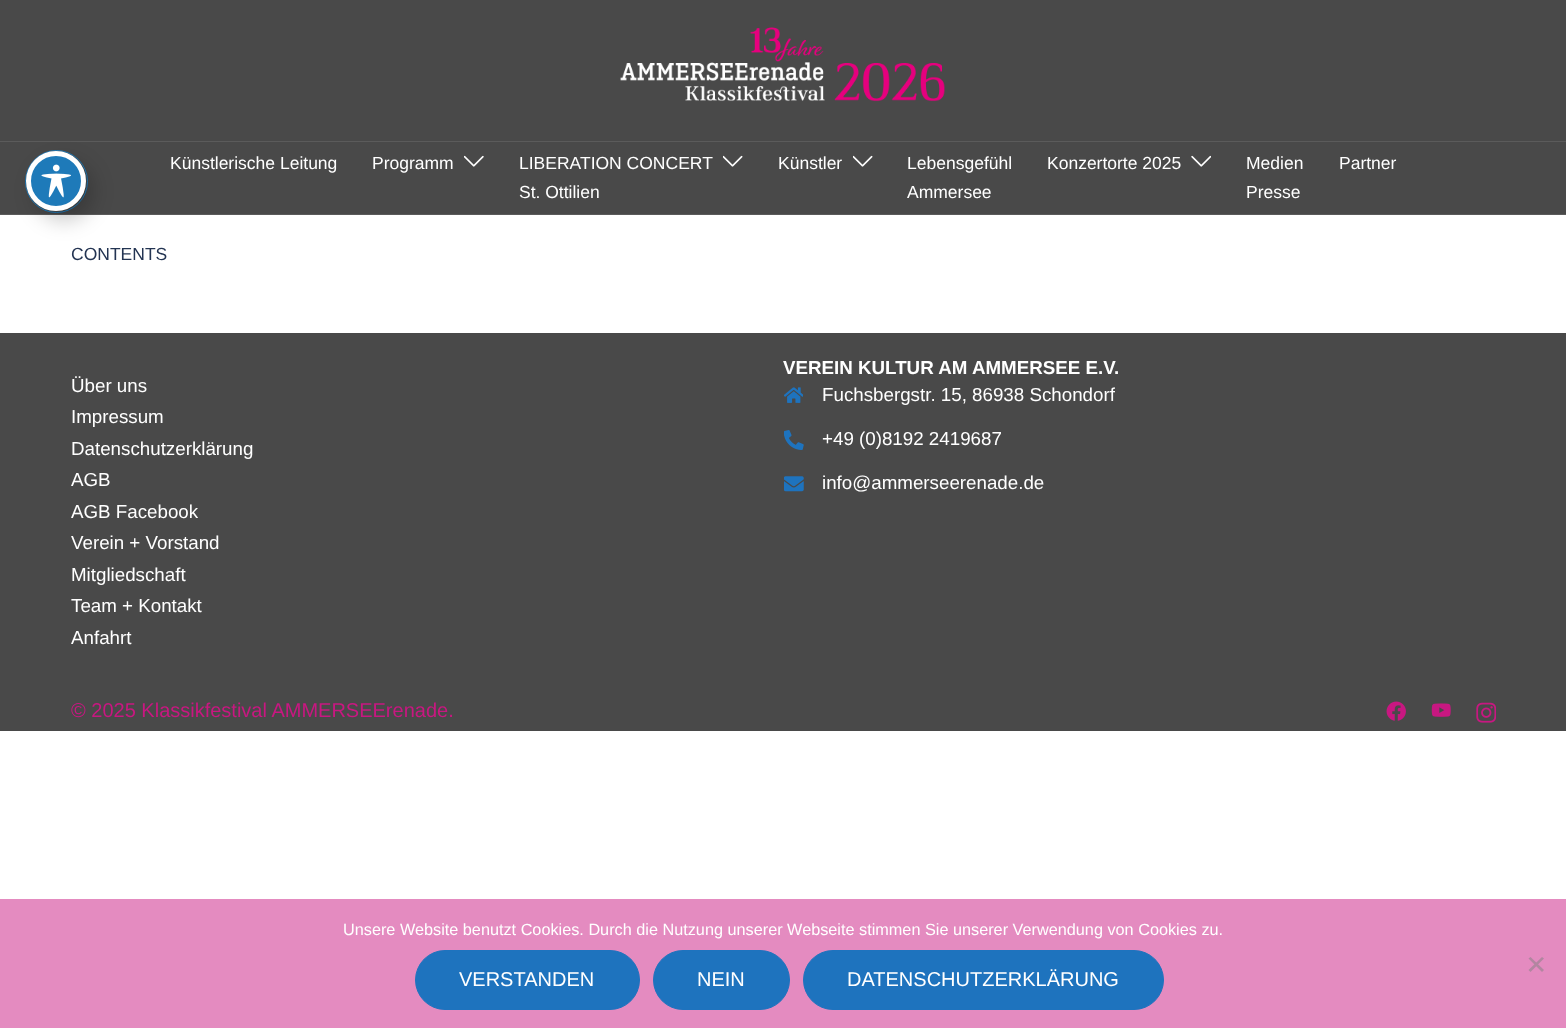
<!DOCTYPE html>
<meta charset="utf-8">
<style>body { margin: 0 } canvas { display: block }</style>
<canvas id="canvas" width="1566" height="1028"></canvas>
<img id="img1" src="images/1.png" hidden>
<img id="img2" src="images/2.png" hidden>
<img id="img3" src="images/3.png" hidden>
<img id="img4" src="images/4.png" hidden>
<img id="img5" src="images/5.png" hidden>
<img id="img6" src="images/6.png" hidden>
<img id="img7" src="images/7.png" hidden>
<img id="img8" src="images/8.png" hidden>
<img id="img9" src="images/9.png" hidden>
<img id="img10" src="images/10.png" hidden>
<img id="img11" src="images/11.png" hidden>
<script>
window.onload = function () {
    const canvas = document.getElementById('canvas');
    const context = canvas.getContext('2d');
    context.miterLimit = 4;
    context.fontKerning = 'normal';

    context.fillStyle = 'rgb(255, 255, 255)';
    context.fillRect(0, 0, 1566, 1028);
    context.fillStyle = 'rgb(73, 73, 73)';
    context.fillRect(0, 0, 1566, 214);
    context.beginPath();
    context.arc(56.5, 181.5, 31, 0, 2 * Math.PI);
    context.strokeStyle = 'rgb(30, 122, 185)';
    context.stroke();
    context.fillStyle = 'rgb(91, 91, 91)';
    context.fillRect(0, 141, 1566, 1);
    context.fillRect(0, 214, 1566, 1);
    context.fillStyle = 'rgba(0, 0, 0, 0.2)';
    context.filter = 'blur(10px)';
    context.beginPath();
    context.roundRect(34, 161, 60, 60, 30);
    context.fill();
    context.filter = 'none';
    context.fillStyle = 'rgb(30, 122, 185)';
    context.beginPath();
    context.arc(56, 181, 27.5, 0, 2 * Math.PI);
    context.fill();
    context.strokeStyle = 'rgb(255, 255, 255)';
    context.lineWidth = 5;
    context.stroke();
    context.drawImage(document.getElementById('img1'), 41, 164, 30, 34);
    context.drawImage(document.getElementById('img2'), 620, 27, 325, 75);
    context.drawImage(document.getElementById('img3'), 464, 155, 20, 12);
    context.drawImage(document.getElementById('img4'), 723, 155, 20, 12);
    context.drawImage(document.getElementById('img4'), 853, 155, 20, 12);
    context.drawImage(document.getElementById('img5'), 1191, 155, 20, 12);
    context.fillStyle = 'rgb(73, 73, 73)';
    context.fillRect(0, 333, 1566, 398);
    context.drawImage(document.getElementById('img6'), 784, 387, 19, 16);
    context.drawImage(document.getElementById('img7'), 784, 430, 20, 20);
    context.drawImage(document.getElementById('img8'), 784, 476, 20, 16);
    context.drawImage(document.getElementById('img9'), 1386, 701, 20, 20);
    context.drawImage(document.getElementById('img10'), 1431, 703, 20, 14);
    context.drawImage(document.getElementById('img11'), 1476, 702, 20, 21);
    context.fillStyle = 'rgb(228, 139, 192)';
    context.fillRect(0, 899, 1566, 129);
    context.fillStyle = 'rgb(178, 134, 160)';
    context.beginPath();
    context.moveTo(1542, 957);
    context.lineTo(1544, 958.5);
    context.lineTo(1530.5, 972);
    context.lineTo(1528.5, 970);
    context.closePath();
    context.fill();
    context.beginPath();
    context.moveTo(1528.5, 958.5);
    context.lineTo(1530.5, 957);
    context.lineTo(1544, 970);
    context.lineTo(1542, 972);
    context.closePath();
    context.fill();
    context.fillStyle = 'rgb(30, 115, 190)';
    context.beginPath();
    context.roundRect(415.5, 950.5, 224, 59, 29.5);
    context.fill();
    context.strokeStyle = 'rgb(30, 115, 190)';
    context.lineWidth = 1;
    context.stroke();
    context.beginPath();
    context.roundRect(653.5, 950.5, 136, 59, 29.5);
    context.fill();
    context.stroke();
    context.beginPath();
    context.roundRect(803.5, 950.5, 360, 59, 29.5);
    context.fill();
    context.stroke();
    context.font = '17.5px Liberation Sans';
    context.fillStyle = 'rgb(255, 255, 255)';
    context.fillText('Künstlerische Leitung', 170, 169);
    context.fillText('Programm', 372, 169);
    context.fillText('LIBERATION CONCERT', 519, 169);
    context.fillText('St. Ottilien', 519, 198);
    context.fillText('Künstler', 778, 169);
    context.fillText('Lebensgefühl', 907, 169);
    context.fillText('Ammersee', 907, 198);
    context.fillText('Konzertorte 2025', 1047, 169);
    context.fillText('Medien', 1246, 169);
    context.fillText('Presse', 1246, 198);
    context.fillText('Partner', 1339, 169);
    context.fillStyle = 'rgb(35, 52, 82)';
    context.fillText('CONTENTS', 71, 260);
    context.font = '18.75px Liberation Sans';
    context.fillStyle = 'rgb(255, 255, 255)';
    context.fillText('Über uns', 71, 392);
    context.fillText('Impressum', 71, 423);
    context.fillText('Datenschutzerklärung', 71, 455);
    context.fillText('AGB', 71, 486);
    context.fillText('AGB Facebook', 71, 518);
    context.fillText('Verein + Vorstand', 71, 549);
    context.fillText('Mitgliedschaft', 71, 581);
    context.fillText('Team + Kontakt', 71, 612);
    context.fillText('Anfahrt', 71, 644);
    context.font = 'bold 18.75px Liberation Sans';
    context.fillText('VEREIN KULTUR AM AMMERSEE E.V.', 783, 374);
    context.font = '18.75px Liberation Sans';
    context.fillText('Fuchsbergstr. 15, 86938 Schondorf', 822, 401);
    context.fillText('+49 (0)8192 2419687', 822, 445);
    context.fillText('info@ammerseerenade.de', 822, 489);
    context.font = '20px Liberation Sans';
    context.fillStyle = 'rgb(200, 23, 129)';
    context.fillText('© 2025 Klassikfestival AMMERSEErenade.', 71, 717);
    context.font = '16.25px Liberation Sans';
    context.fillStyle = 'rgb(255, 255, 255)';
    context.fillText('Unsere Website benutzt Cookies. Durch die Nutzung unserer Webseite stimmen Sie unserer Verwendung von Cookies zu.', 343, 935);
    context.font = '20px Liberation Sans';
    context.fillText('VERSTANDEN', 459, 986);
    context.fillText('NEIN', 697, 986);
    context.fillText('DATENSCHUTZERKLÄRUNG', 847, 986);
};
</script>
